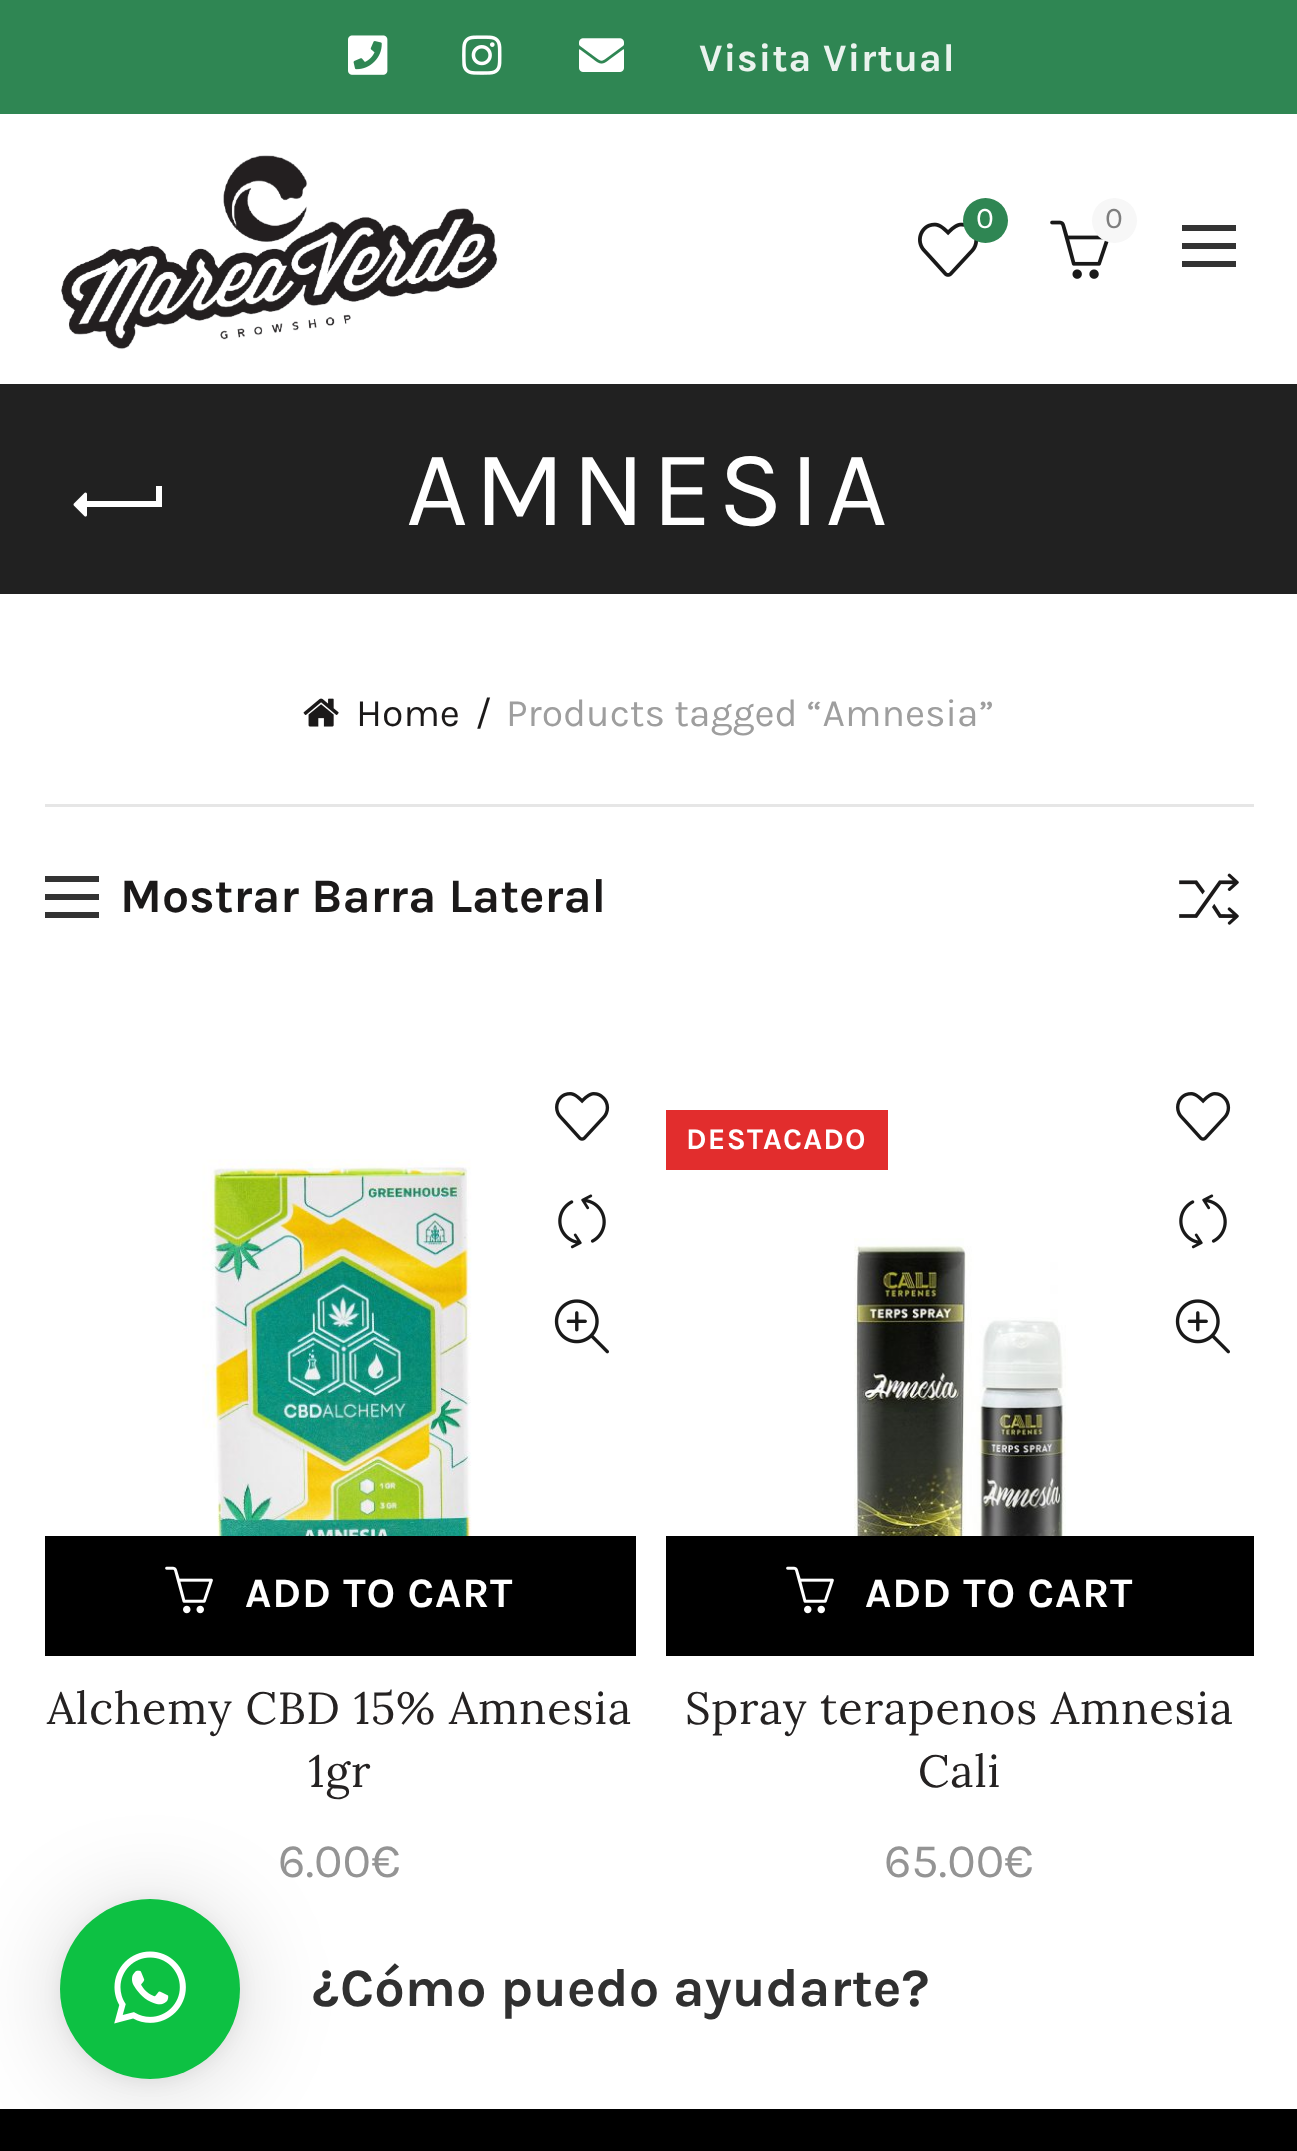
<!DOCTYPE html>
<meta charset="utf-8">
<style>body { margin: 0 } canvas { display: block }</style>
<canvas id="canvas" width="1297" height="2151"></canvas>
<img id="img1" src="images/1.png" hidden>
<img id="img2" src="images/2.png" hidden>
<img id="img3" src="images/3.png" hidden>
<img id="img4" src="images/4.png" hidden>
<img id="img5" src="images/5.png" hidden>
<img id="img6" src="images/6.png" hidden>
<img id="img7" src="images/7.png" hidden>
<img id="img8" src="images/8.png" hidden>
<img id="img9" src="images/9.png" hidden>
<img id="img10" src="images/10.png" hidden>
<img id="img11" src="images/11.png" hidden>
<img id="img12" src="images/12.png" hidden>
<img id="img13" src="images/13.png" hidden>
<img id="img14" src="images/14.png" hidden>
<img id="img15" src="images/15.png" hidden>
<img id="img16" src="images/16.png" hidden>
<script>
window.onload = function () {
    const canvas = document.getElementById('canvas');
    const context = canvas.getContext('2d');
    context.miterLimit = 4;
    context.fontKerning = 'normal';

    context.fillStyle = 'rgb(255, 255, 255)';
    context.fillRect(0, 0, 1297, 2151);
    context.fillStyle = 'rgb(47, 134, 83)';
    context.fillRect(0, 0, 1297, 114);
    context.drawImage(document.getElementById('img1'), 348, 35, 40, 40);
    context.drawImage(document.getElementById('img2'), 462, 35, 40, 40);
    context.drawImage(document.getElementById('img3'), 579, 38, 45, 34);
    context.drawImage(document.getElementById('img4'), 61, 155, 437, 195);
    context.drawImage(document.getElementById('img5'), 918, 222, 61, 55);
    context.beginPath();
    context.arc(985.5, 220.5, 22.5, 0, 2 * Math.PI);
    context.fill();
    context.drawImage(document.getElementById('img6'), 1050, 220, 59, 59);
    context.fillStyle = 'rgb(247, 247, 247)';
    context.beginPath();
    context.arc(1114.5, 220.5, 22.5, 0, 2 * Math.PI);
    context.fill();
    context.fillStyle = 'rgb(51, 51, 51)';
    context.fillRect(1182, 243, 54, 6);
    context.fillRect(1182, 225, 54, 6);
    context.fillRect(1182, 261, 54, 6);
    context.fillStyle = 'rgb(33, 33, 33)';
    context.fillRect(0, 384, 1297, 210);
    context.fillStyle = 'rgb(255, 255, 255)';
    context.fillRect(84, 501, 75, 6);
    context.drawImage(document.getElementById('img7'), 73, 492, 14, 25);
    context.fillRect(156, 486, 6, 21);
    context.fillStyle = 'rgb(230, 230, 230)';
    context.fillRect(45, 804, 1209, 3);
    context.drawImage(document.getElementById('img8'), 303, 698, 36, 29);
    context.fillStyle = 'rgb(51, 51, 51)';
    context.fillRect(45, 894, 54, 6);
    context.fillRect(45, 876, 54, 6);
    context.fillRect(45, 912, 54, 6);
    context.drawImage(document.getElementById('img9'), 1179, 873, 60, 52);
    context.drawImage(document.getElementById('img10'), 202, 1159, 271, 377);
    context.drawImage(document.getElementById('img11'), 555, 1092, 55, 49);
    context.drawImage(document.getElementById('img12'), 558, 1194, 48, 55);
    context.drawImage(document.getElementById('img13'), 554, 1299, 55, 55);
    context.fillStyle = 'rgb(0, 0, 0)';
    context.fillRect(45, 1536, 591, 120);
    context.drawImage(document.getElementById('img14'), 165, 1566, 48, 48);
    context.fillStyle = 'rgb(226, 45, 45)';
    context.fillRect(666, 1110, 222, 60);
    context.drawImage(document.getElementById('img15'), 854, 1238, 214, 298);
    context.drawImage(document.getElementById('img11'), 1176, 1092, 55, 49);
    context.drawImage(document.getElementById('img12'), 1179, 1194, 48, 55);
    context.drawImage(document.getElementById('img13'), 1175, 1299, 55, 55);
    context.fillStyle = 'rgb(0, 0, 0)';
    context.fillRect(666, 1536, 588, 120);
    context.drawImage(document.getElementById('img14'), 786, 1566, 48, 48);
    context.fillRect(0, 2109, 1297, 42);
    context.fillStyle = 'rgba(0, 0, 0, 0.16)';
    context.filter = 'blur(48px)';
    context.beginPath();
    context.roundRect(60, 1905, 180, 180, 90);
    context.fill();
    context.filter = 'none';
    context.fillStyle = 'rgba(0, 0, 0, 0.06)';
    context.filter = 'blur(9px)';
    context.beginPath();
    context.roundRect(60, 1902, 180, 180, 90);
    context.fill();
    context.filter = 'none';
    context.fillStyle = 'rgb(13, 193, 67)';
    context.beginPath();
    context.arc(150, 1989, 90, 0, 2 * Math.PI);
    context.fill();
    context.drawImage(document.getElementById('img16'), 114, 1951, 72, 73);
    context.letterSpacing = '0.9px';
    context.font = 'bold 39px Karla';
    context.fillStyle = 'rgb(234, 243, 238)';
    context.fillText('Visita Virtual', 699, 71);
    context.letterSpacing = '0px';
    context.font = '30px Karla';
    context.fillStyle = 'rgb(255, 255, 255)';
    context.fillText('0', 976, 228);
    context.fillStyle = 'rgb(126, 126, 126)';
    context.fillText('0', 1105, 228);
    context.letterSpacing = '6px';
    context.font = '108px Karla';
    context.fillStyle = 'rgb(255, 255, 255)';
    context.fillText('AMNESIA', 406, 525);
    context.letterSpacing = '0px';
    context.font = '39px Karla';
    context.fillStyle = 'rgb(27, 25, 25)';
    context.fillText('Home', 356, 726);
    context.fillText('/', 475, 726);
    context.fillStyle = 'rgb(158, 158, 158)';
    context.fillText('Products tagged “Amnesia”', 506, 726);
    context.font = 'bold 48px Karla';
    context.fillStyle = 'rgb(27, 25, 25)';
    context.fillText('Mostrar Barra Lateral', 120, 912);
    context.letterSpacing = '0.9px';
    context.font = 'bold 42px Karla';
    context.fillStyle = 'rgb(255, 255, 255)';
    context.fillText('ADD TO CART', 245, 1607);
    context.font = '45px Lora';
    context.fillStyle = 'rgb(37, 34, 34)';
    context.fillText('Alchemy CBD 15% Amnesia', 47, 1724);
    context.fillText('1gr', 308, 1787);
    context.letterSpacing = '0px';
    context.font = '48px Karla';
    context.fillStyle = 'rgb(148, 148, 148)';
    context.fillText('6.00€', 278, 1877);
    context.letterSpacing = '1.25px';
    context.font = 'bold 30px Karla';
    context.fillStyle = 'rgb(255, 255, 255)';
    context.fillText('DESTACADO', 686, 1149);
    context.letterSpacing = '0.9px';
    context.font = 'bold 42px Karla';
    context.fillText('ADD TO CART', 865, 1607);
    context.font = '45px Lora';
    context.fillStyle = 'rgb(37, 34, 34)';
    context.fillText('Spray terapenos Amnesia', 685, 1724);
    context.fillText('Cali', 918, 1787);
    context.letterSpacing = '0px';
    context.font = '48px Karla';
    context.fillStyle = 'rgb(148, 148, 148)';
    context.fillText('65.00€', 884, 1877);
    context.font = 'bold 54px Karla';
    context.fillStyle = 'rgb(48, 48, 48)';
    context.fillText('¿Cómo puedo ayudarte?', 312, 2006);
};
</script>
